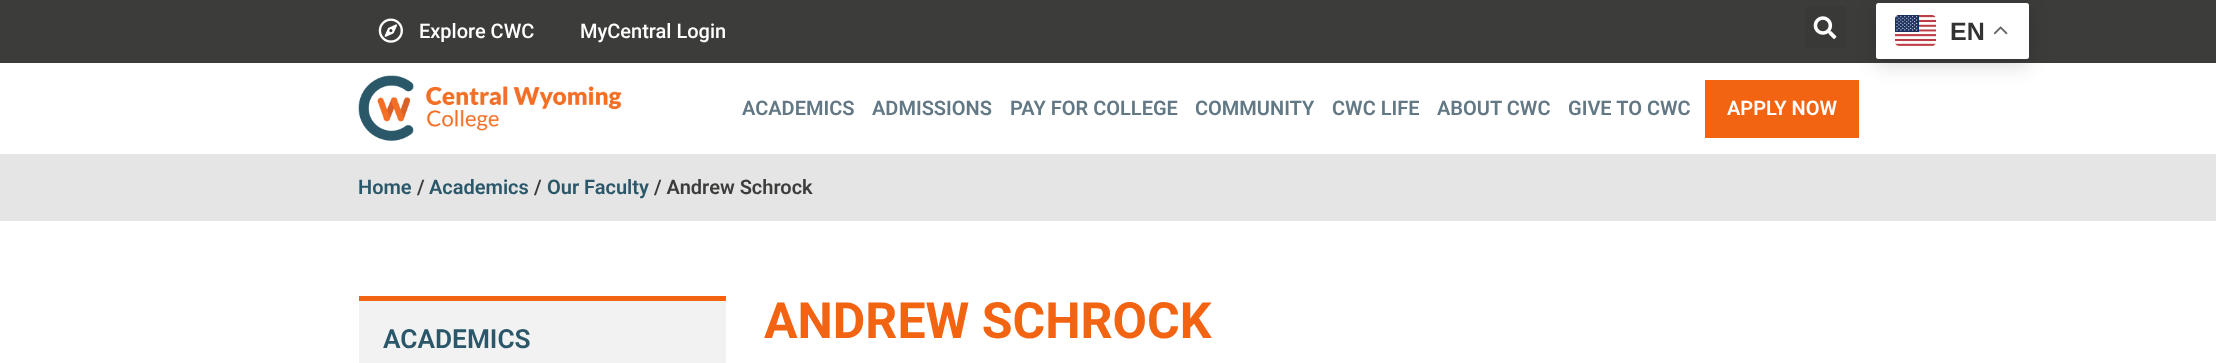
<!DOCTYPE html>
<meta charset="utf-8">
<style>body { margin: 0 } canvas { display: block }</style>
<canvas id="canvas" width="2216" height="363"></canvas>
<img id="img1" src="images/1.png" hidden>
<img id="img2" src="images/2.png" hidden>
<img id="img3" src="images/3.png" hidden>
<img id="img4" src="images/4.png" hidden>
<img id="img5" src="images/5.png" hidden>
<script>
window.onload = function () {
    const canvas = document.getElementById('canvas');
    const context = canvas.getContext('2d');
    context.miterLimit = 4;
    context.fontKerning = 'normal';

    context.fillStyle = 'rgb(255, 255, 255)';
    context.fillRect(0, 0, 2216, 363);
    context.fillStyle = 'rgb(60, 60, 59)';
    context.fillRect(0, 0, 2216, 63);
    context.drawImage(document.getElementById('img1'), 378, 18, 25, 25);
    context.fillStyle = 'rgb(57, 57, 56)';
    context.beginPath();
    context.roundRect(1805, 6, 41, 42, 4);
    context.fill();
    context.drawImage(document.getElementById('img2'), 1813, 16, 24, 23);
    context.drawImage(document.getElementById('img3'), 358, 75, 264, 66);
    context.fillStyle = 'rgb(243, 100, 18)';
    context.fillRect(1705, 80, 154, 58);
    context.fillStyle = 'rgb(229, 229, 229)';
    context.fillRect(0, 154, 2216, 67);
    context.fillStyle = 'rgba(0, 0, 0, 0.15)';
    context.filter = 'blur(9.5px)';
    context.beginPath();
    context.roundRect(1876, 9, 153, 56, 2.5);
    context.fill();
    context.filter = 'none';
    context.fillStyle = 'rgb(255, 255, 255)';
    context.beginPath();
    context.roundRect(1876, 3, 153, 56, 2.5);
    context.fill();
    context.drawImage(document.getElementById('img4'), 1895, 15, 41, 31);
    context.drawImage(document.getElementById('img5'), 1994, 26, 14, 9);
    context.fillStyle = 'rgb(242, 242, 242)';
    context.fillRect(359, 301, 367, 62);
    context.fillStyle = 'rgb(243, 100, 18)';
    context.fillRect(359, 296, 367, 5);
    context.font = '500 20px Roboto';
    context.fillStyle = 'rgb(255, 255, 255)';
    context.fillText('Explore CWC', 419, 38);
    context.fillText('MyCentral Login', 580, 38);
    context.font = '600 20px Roboto';
    context.fillStyle = 'rgb(98, 120, 132)';
    context.fillText('ACADEMICS', 742, 115);
    context.fillText('ADMISSIONS', 872, 115);
    context.fillText('PAY FOR COLLEGE', 1010, 115);
    context.fillText('COMMUNITY', 1195, 115);
    context.fillText('CWC LIFE', 1332, 115);
    context.fillText('ABOUT CWC', 1437, 115);
    context.fillText('GIVE TO CWC', 1568, 115);
    context.fillStyle = 'rgb(255, 255, 255)';
    context.fillText('APPLY NOW', 1727, 115);
    context.fillStyle = 'rgb(42, 87, 105)';
    context.fillText('Home', 358, 194);
    context.fillStyle = 'rgb(60, 60, 59)';
    context.fillText('/', 417, 194);
    context.fillStyle = 'rgb(42, 87, 105)';
    context.fillText('Academics', 429, 194);
    context.fillStyle = 'rgb(60, 60, 59)';
    context.fillText('/', 534, 194);
    context.fillStyle = 'rgb(42, 87, 105)';
    context.fillText('Our Faculty', 547, 194);
    context.fillStyle = 'rgb(60, 60, 59)';
    context.fillText('/ Andrew Schrock', 654, 194);
    context.font = 'bold 25px Liberation Sans';
    context.fillStyle = 'rgb(51, 51, 51)';
    context.fillText('EN', 1950, 40);
    context.font = '600 26.25px Roboto';
    context.fillStyle = 'rgb(42, 87, 105)';
    context.fillText('ACADEMICS', 383, 348);
    context.font = 'bold 50px Roboto';
    context.fillStyle = 'rgb(243, 100, 18)';
    context.fillText('ANDREW SCHROCK', 764, 338);
};
</script>
